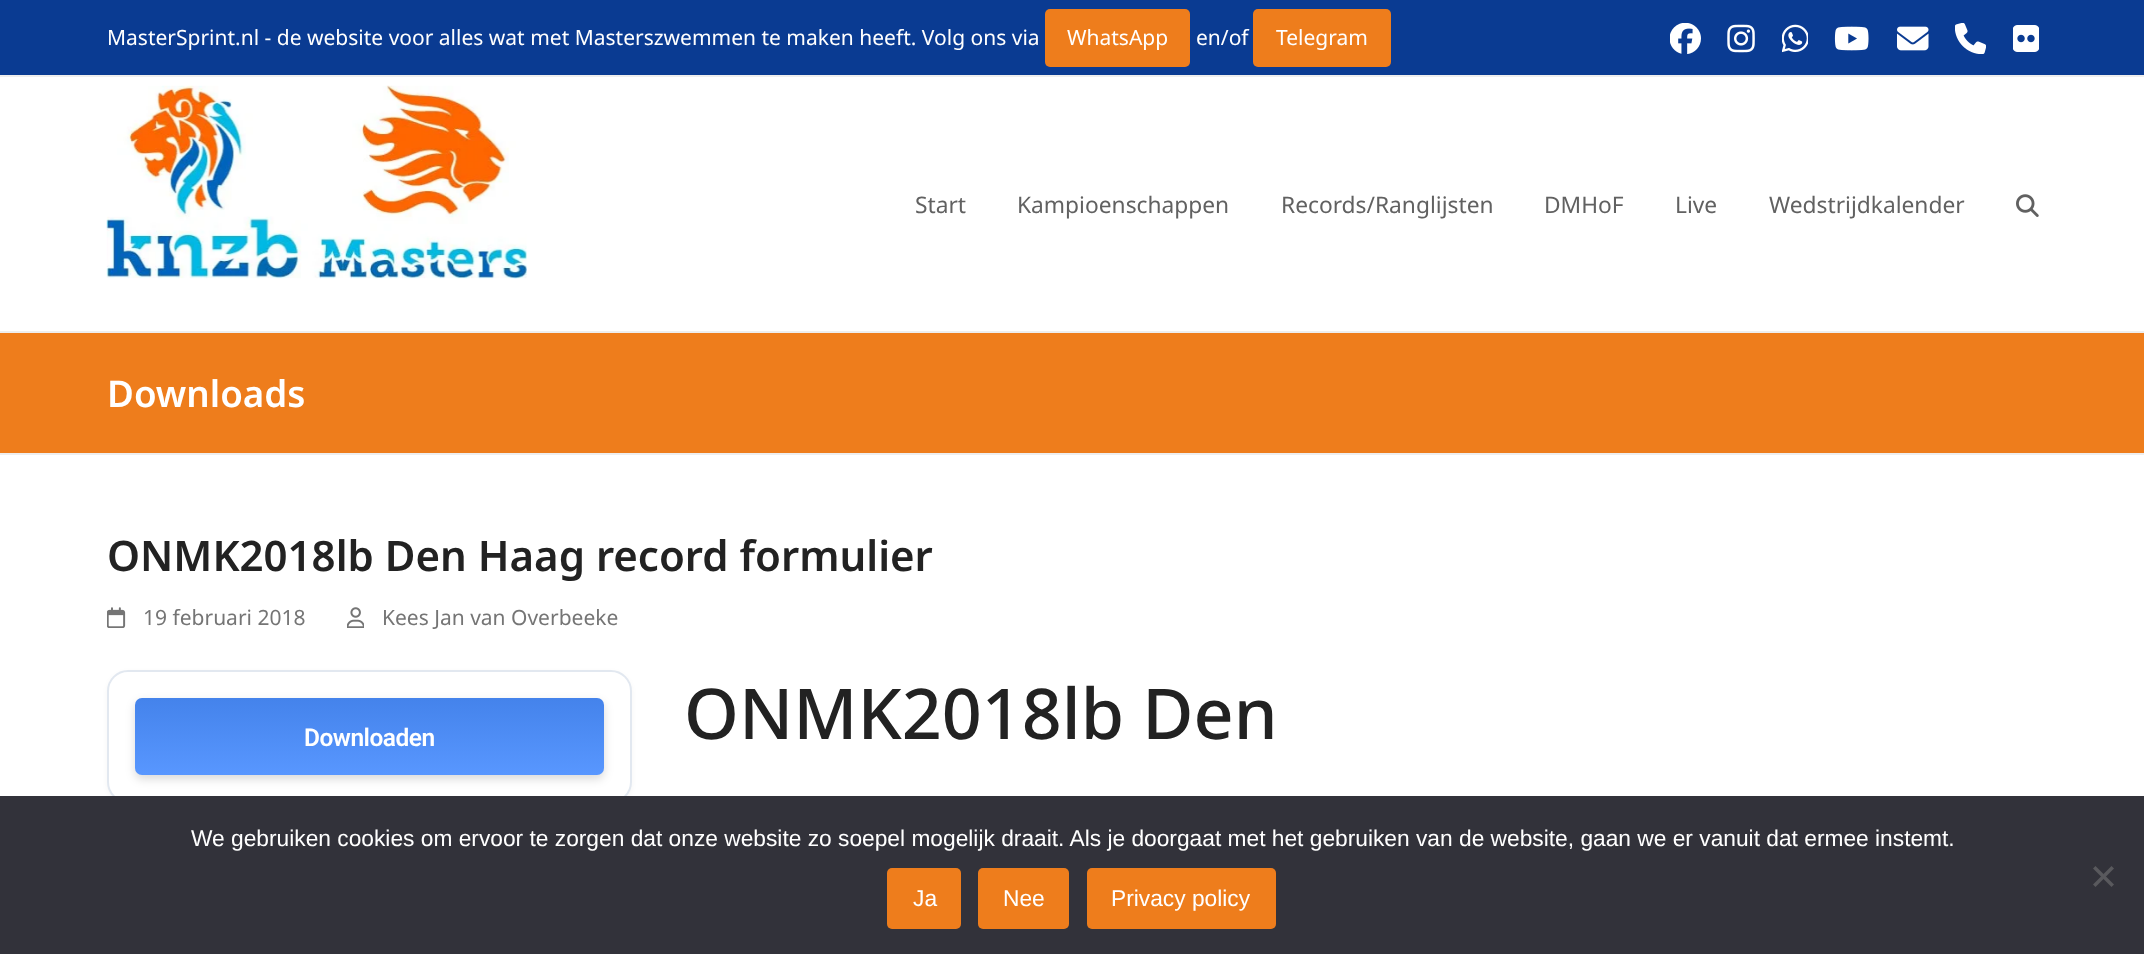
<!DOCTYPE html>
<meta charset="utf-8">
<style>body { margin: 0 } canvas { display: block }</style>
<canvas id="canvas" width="2144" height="954"></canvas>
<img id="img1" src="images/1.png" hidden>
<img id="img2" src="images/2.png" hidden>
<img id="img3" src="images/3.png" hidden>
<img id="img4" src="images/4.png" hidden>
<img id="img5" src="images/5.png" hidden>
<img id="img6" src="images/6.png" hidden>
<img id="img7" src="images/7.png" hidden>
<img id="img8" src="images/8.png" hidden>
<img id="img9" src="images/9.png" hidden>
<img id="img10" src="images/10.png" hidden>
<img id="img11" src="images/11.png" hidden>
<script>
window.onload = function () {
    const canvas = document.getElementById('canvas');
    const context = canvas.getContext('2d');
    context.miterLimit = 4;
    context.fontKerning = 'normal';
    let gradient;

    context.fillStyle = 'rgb(255, 255, 255)';
    context.fillRect(0, 0, 2144, 954);
    context.fillStyle = 'rgb(10, 59, 146)';
    context.fillRect(0, 0, 2144, 75);
    context.fillStyle = 'rgb(238, 238, 238)';
    context.fillRect(0, 75, 2144, 2);
    context.fillStyle = 'rgb(238, 125, 28)';
    context.beginPath();
    context.roundRect(1045, 9, 145, 58, 5);
    context.fill();
    context.beginPath();
    context.roundRect(1253, 9, 138, 58, 5);
    context.fill();
    context.drawImage(document.getElementById('img1'), 1670, 23, 31, 31);
    context.drawImage(document.getElementById('img2'), 1727, 24, 28, 29);
    context.drawImage(document.getElementById('img3'), 1782, 24, 26, 29);
    context.drawImage(document.getElementById('img4'), 1834, 26, 35, 25);
    context.drawImage(document.getElementById('img5'), 1897, 26, 32, 25);
    context.drawImage(document.getElementById('img6'), 1955, 23, 31, 31);
    context.drawImage(document.getElementById('img7'), 2013, 25, 26, 27);
    context.drawImage(document.getElementById('img8'), 106, 85, 421, 194);
    context.drawImage(document.getElementById('img9'), 2016, 194, 23, 23);
    context.fillRect(0, 333, 2144, 120);
    context.fillStyle = 'rgb(238, 238, 238)';
    context.fillRect(0, 331, 2144, 2);
    context.fillRect(0, 453, 2144, 2);
    context.drawImage(document.getElementById('img10'), 107, 607, 19, 21);
    context.drawImage(document.getElementById('img11'), 347, 607, 17, 21);
    context.fillStyle = 'rgba(0, 0, 0, 0.04)';
    context.filter = 'blur(2.5px)';
    context.beginPath();
    context.roundRect(107, 672, 525, 133, 21);
    context.fill();
    context.filter = 'none';
    context.fillStyle = 'rgb(255, 255, 255)';
    context.beginPath();
    context.roundRect(108, 671, 523, 131, 20);
    context.fill();
    context.strokeStyle = 'rgb(226, 232, 240)';
    context.lineWidth = 2;
    context.stroke();
    context.fillStyle = 'rgba(0, 0, 0, 0.15)';
    context.filter = 'blur(5px)';
    context.beginPath();
    context.roundRect(135, 702, 469, 77, 7);
    context.fill();
    context.filter = 'none';
    context.fillStyle = 'rgb(74, 142, 255)';
    context.beginPath();
    context.roundRect(135, 698, 469, 77, 7);
    context.fill();
    gradient = context.createLinearGradient(369, 698, 369, 775);
    gradient.addColorStop(0, 'rgba(0, 0, 0, 0.08)');
    gradient.addColorStop(1, 'rgba(255, 255, 255, 0.08)');
    context.fillStyle = gradient;
    context.beginPath();
    context.roundRect(135, 698, 469, 77, 7);
    context.fill();
    context.fillStyle = 'rgb(50, 50, 58)';
    context.fillRect(0, 796, 2144, 158);
    context.fillStyle = 'rgb(89, 89, 93)';
    context.beginPath();
    context.moveTo(2111.5, 866);
    context.lineTo(2114, 868.5);
    context.lineTo(2095.5, 887);
    context.lineTo(2093, 884.5);
    context.closePath();
    context.fill();
    context.beginPath();
    context.moveTo(2093, 868.5);
    context.lineTo(2095.5, 866);
    context.lineTo(2114, 884.5);
    context.lineTo(2111.5, 887);
    context.closePath();
    context.fill();
    context.fillStyle = 'rgb(238, 125, 28)';
    context.beginPath();
    context.roundRect(887, 868, 74, 61, 5);
    context.fill();
    context.beginPath();
    context.roundRect(978, 868, 91, 61, 5);
    context.fill();
    context.beginPath();
    context.roundRect(1087, 868, 189, 61, 5);
    context.fill();
    context.font = '21px Noto Sans';
    context.fillStyle = 'rgb(255, 255, 255)';
    context.fillText('MasterSprint.nl - de website voor alles wat met Masterszwemmen te maken heeft. Volg ons via', 107, 45);
    context.fillText('WhatsApp', 1067, 45);
    context.fillText('en/of', 1196, 45);
    context.fillText('Telegram', 1276, 45);
    context.font = '22.75px Noto Sans';
    context.fillStyle = 'rgb(97, 97, 97)';
    context.fillText('Start', 915, 213);
    context.fillText('Kampioenschappen', 1017, 213);
    context.fillText('Records/Ranglijsten', 1281, 213);
    context.fillText('DMHoF', 1544, 213);
    context.fillText('Live', 1675, 213);
    context.fillText('Wedstrijdkalender', 1769, 213);
    context.font = '600 36.75px Noto Sans';
    context.fillStyle = 'rgb(255, 255, 255)';
    context.fillText('Downloads', 107, 407);
    context.font = '600 42px Noto Sans';
    context.fillStyle = 'rgb(34, 34, 34)';
    context.fillText('ONMK2018lb Den Haag record formulier', 107, 571);
    context.font = '21px Noto Sans';
    context.fillStyle = 'rgb(117, 117, 117)';
    context.fillText('19 februari 2018', 143, 625);
    context.fillText('Kees Jan van Overbeeke', 382, 625);
    context.letterSpacing = '-0.5px';
    context.font = '600 24.5px Roboto';
    context.fillStyle = 'rgb(255, 255, 255)';
    context.fillText('Downloaden', 304, 746);
    context.letterSpacing = '0px';
    context.font = '500 70px Noto Sans';
    context.fillStyle = 'rgb(34, 34, 34)';
    context.fillText('ONMK2018lb Den', 684, 739);
    context.font = '22.75px Liberation Sans';
    context.fillStyle = 'rgb(255, 255, 255)';
    context.fillText('We gebruiken cookies om ervoor te zorgen dat onze website zo soepel mogelijk draait. Als je doorgaat met het gebruiken van de website, gaan we er vanuit dat ermee instemt.', 191, 846);
    context.fillText('Ja', 913, 906);
    context.fillText('Nee', 1003, 906);
    context.fillText('Privacy policy', 1111, 906);
};
</script>
